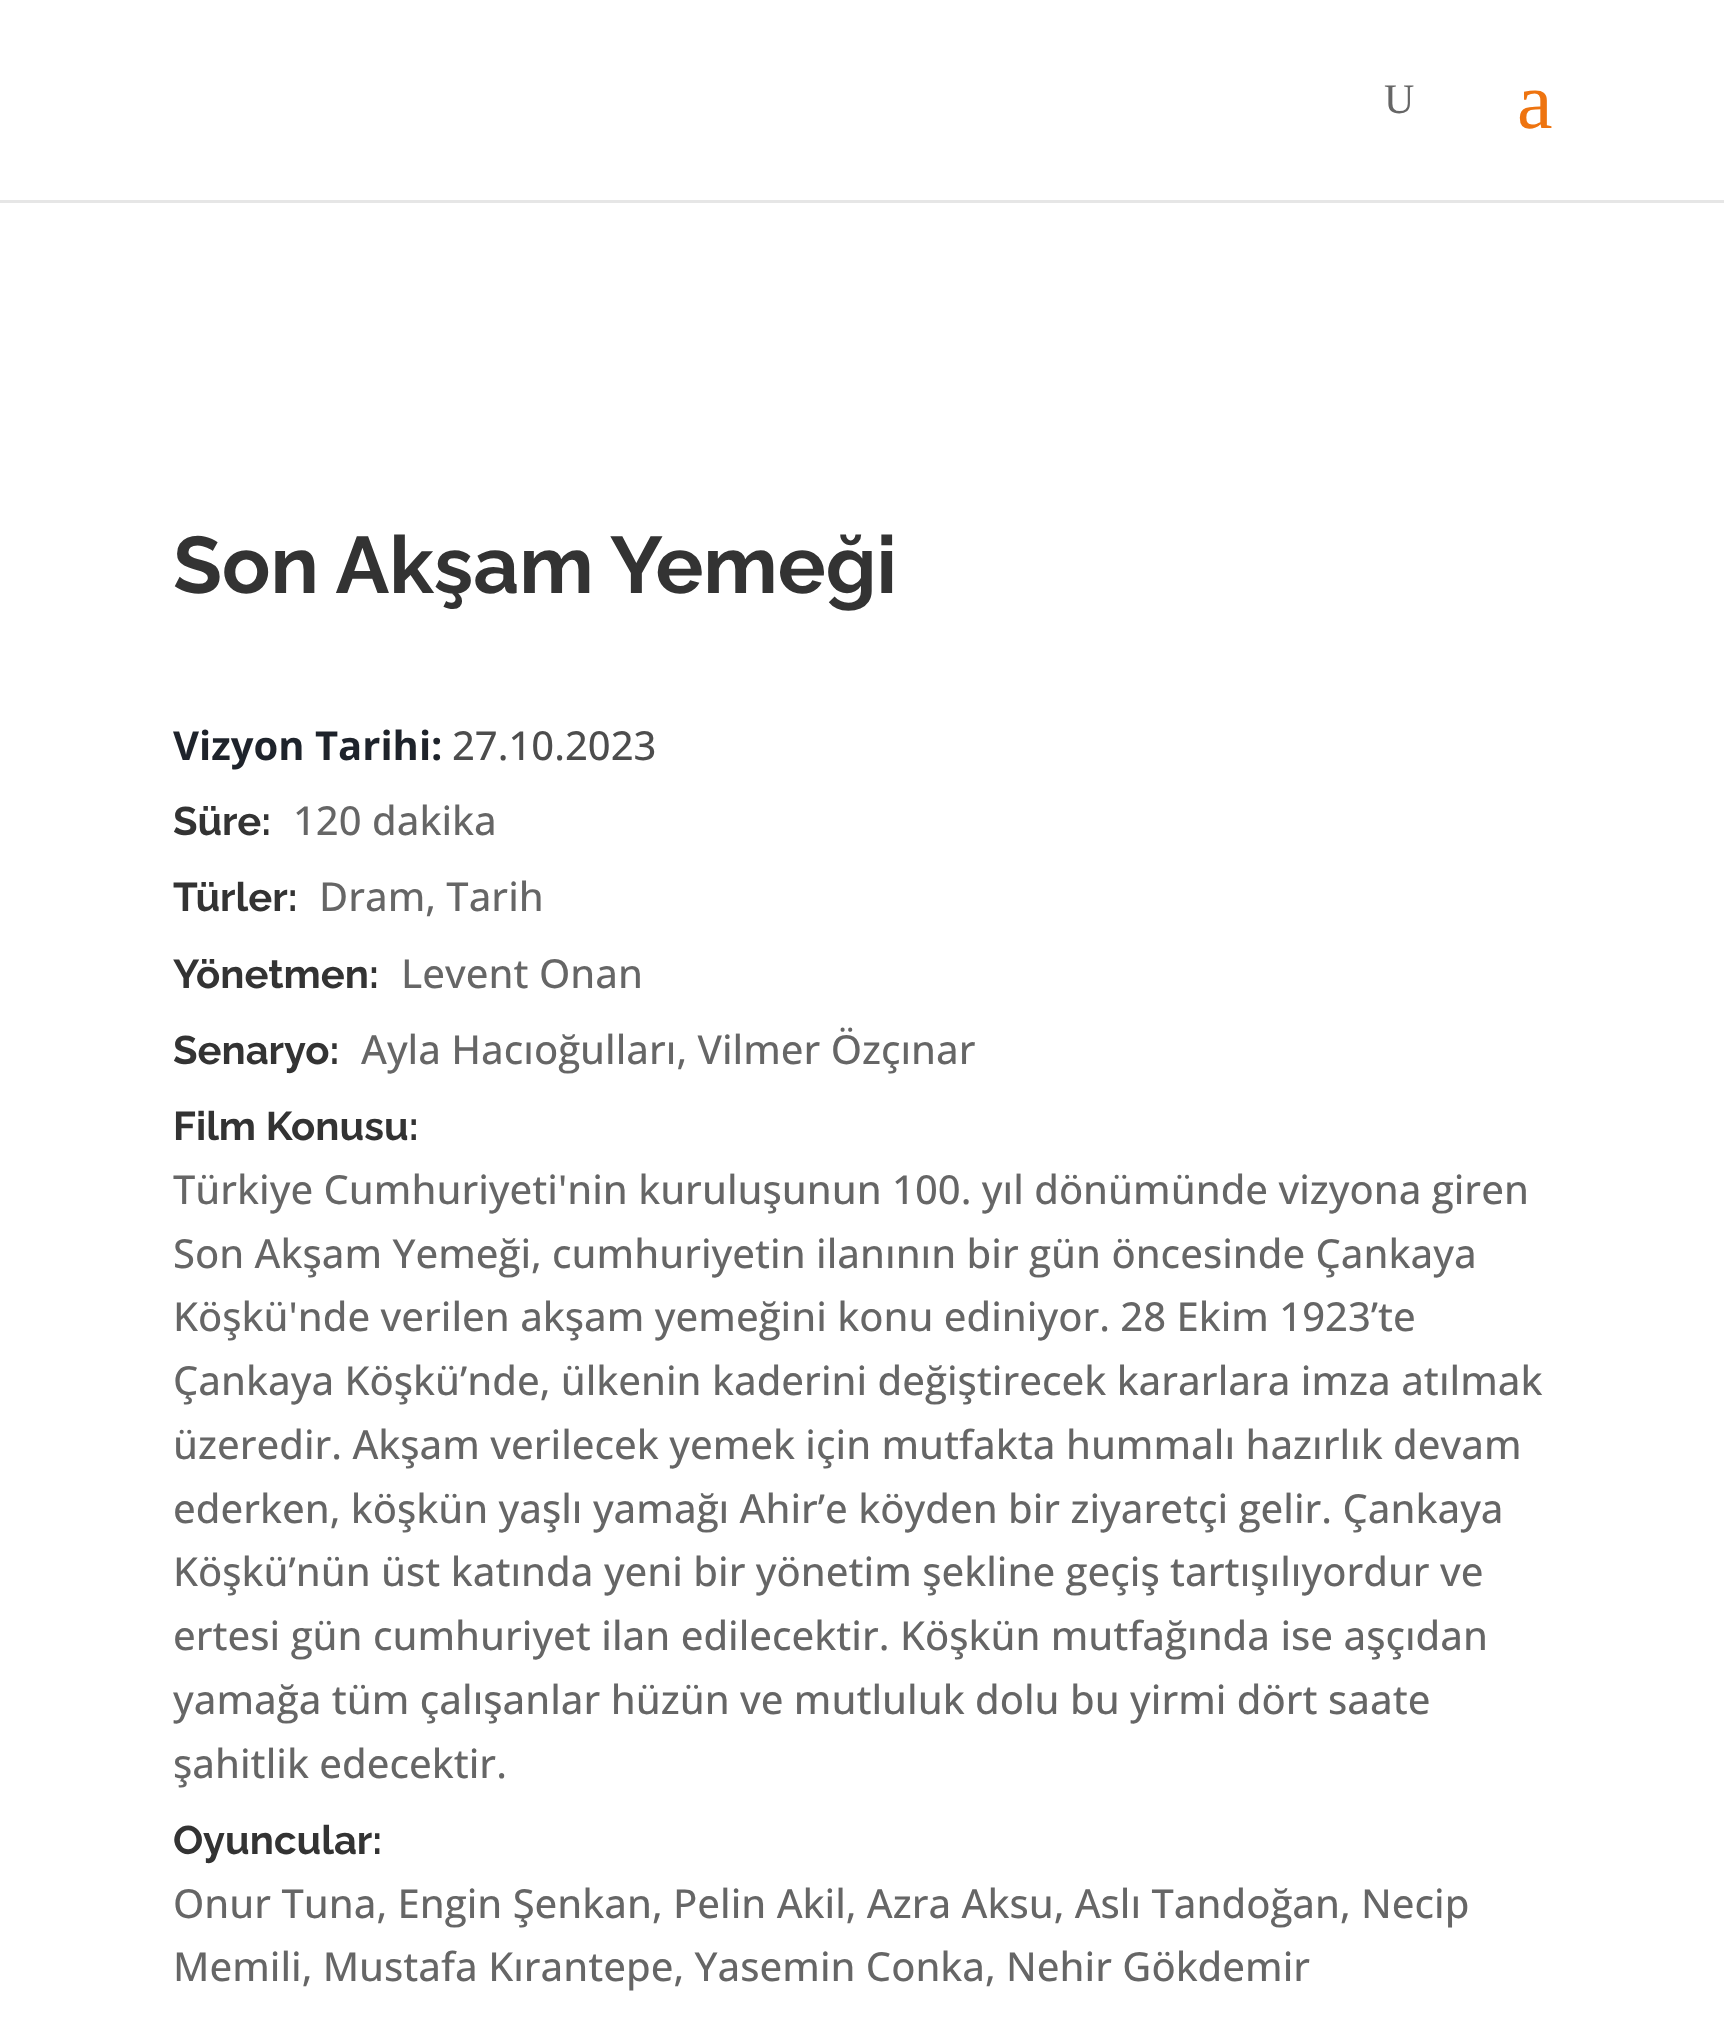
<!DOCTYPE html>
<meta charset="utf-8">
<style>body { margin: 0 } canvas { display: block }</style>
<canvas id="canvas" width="1724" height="2017"></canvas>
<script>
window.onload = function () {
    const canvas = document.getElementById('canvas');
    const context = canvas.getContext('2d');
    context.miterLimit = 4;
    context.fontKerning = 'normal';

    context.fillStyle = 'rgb(255, 255, 255)';
    context.fillRect(0, 0, 1724, 2017);
    context.fillStyle = 'rgb(230, 230, 230)';
    context.fillRect(0, 200, 1724, 3);
    context.font = '42px Liberation Serif';
    context.fillStyle = 'rgb(102, 102, 102)';
    context.fillText('U', 1384, 113);
    context.font = '80px Liberation Serif';
    context.fillStyle = 'rgb(238, 116, 16)';
    context.fillText('a', 1517, 128);
    context.font = 'bold 80px Raleway';
    context.fillStyle = 'rgb(51, 51, 51)';
    context.fillText('Son Akşam Yemeği', 173, 593);
    context.font = 'bold 40px Open Sans';
    context.fillStyle = 'rgb(30, 35, 43)';
    context.fillText('Vizyon Tarihi:', 173, 760);
    context.font = '500 40px Open Sans';
    context.fillStyle = 'rgb(77, 77, 77)';
    context.fillText('27.10.2023', 452, 760);
    context.font = 'bold 40px Raleway';
    context.fillStyle = 'rgb(51, 51, 51)';
    context.fillText('Süre:', 173, 835);
    context.font = '500 40px Open Sans';
    context.fillStyle = 'rgb(102, 102, 102)';
    context.fillText('120 dakika', 293, 835);
    context.font = 'bold 40px Raleway';
    context.fillStyle = 'rgb(51, 51, 51)';
    context.fillText('Türler:', 173, 911);
    context.font = '500 40px Open Sans';
    context.fillStyle = 'rgb(102, 102, 102)';
    context.fillText('Dram, Tarih', 319, 911);
    context.font = 'bold 40px Raleway';
    context.fillStyle = 'rgb(51, 51, 51)';
    context.fillText('Yönetmen:', 173, 988);
    context.font = '500 40px Open Sans';
    context.fillStyle = 'rgb(102, 102, 102)';
    context.fillText('Levent Onan', 401, 988);
    context.font = 'bold 40px Raleway';
    context.fillStyle = 'rgb(51, 51, 51)';
    context.fillText('Senaryo:', 173, 1064);
    context.font = '500 40px Open Sans';
    context.fillStyle = 'rgb(102, 102, 102)';
    context.fillText('Ayla Hacıoğulları, Vilmer Özçınar', 361, 1064);
    context.font = 'bold 40px Raleway';
    context.fillStyle = 'rgb(51, 51, 51)';
    context.fillText('Film Konusu:', 173, 1140);
    context.font = '500 40px Open Sans';
    context.fillStyle = 'rgb(102, 102, 102)';
    context.fillText('Türkiye Cumhuriyeti\'nin kuruluşunun 100. yıl dönümünde vizyona giren', 173, 1204);
    context.fillText('Son Akşam Yemeği, cumhuriyetin ilanının bir gün öncesinde Çankaya', 173, 1268);
    context.fillText('Köşkü\'nde verilen akşam yemeğini konu ediniyor. 28 Ekim 1923’te', 173, 1331);
    context.fillText('Çankaya Köşkü’nde, ülkenin kaderini değiştirecek kararlara imza atılmak', 173, 1395);
    context.fillText('üzeredir. Akşam verilecek yemek için mutfakta hummalı hazırlık devam', 173, 1459);
    context.fillText('ederken, köşkün yaşlı yamağı Ahir’e köyden bir ziyaretçi gelir. Çankaya', 173, 1523);
    context.fillText('Köşkü’nün üst katında yeni bir yönetim şekline geçiş tartışılıyordur ve', 173, 1586);
    context.fillText('ertesi gün cumhuriyet ilan edilecektir. Köşkün mutfağında ise aşçıdan', 173, 1650);
    context.fillText('yamağa tüm çalışanlar hüzün ve mutluluk dolu bu yirmi dört saate', 173, 1714);
    context.fillText('şahitlik edecektir.', 173, 1778);
    context.font = 'bold 40px Raleway';
    context.fillStyle = 'rgb(51, 51, 51)';
    context.fillText('Oyuncular:', 173, 1854);
    context.font = '500 40px Open Sans';
    context.fillStyle = 'rgb(102, 102, 102)';
    context.fillText('Onur Tuna, Engin Şenkan, Pelin Akil, Azra Aksu, Aslı Tandoğan, Necip', 173, 1918);
    context.fillText('Memili, Mustafa Kırantepe, Yasemin Conka, Nehir Gökdemir', 173, 1981);
};
</script>
